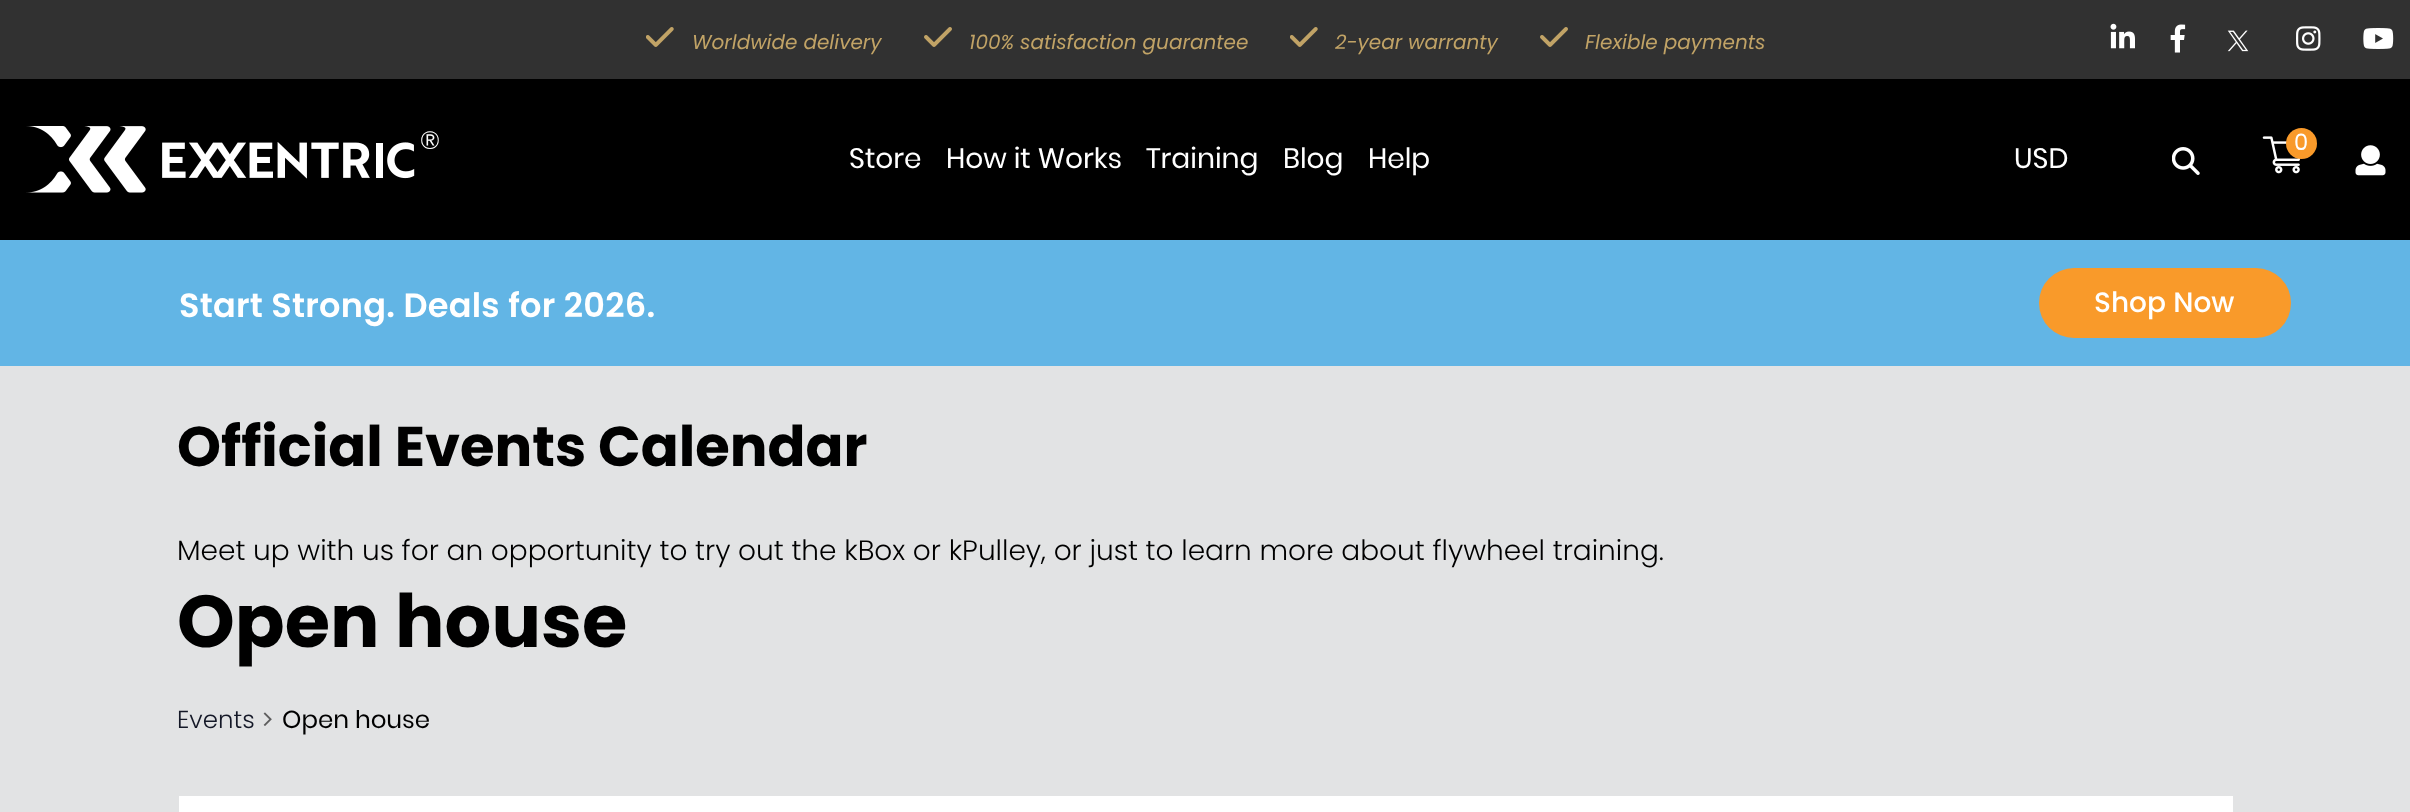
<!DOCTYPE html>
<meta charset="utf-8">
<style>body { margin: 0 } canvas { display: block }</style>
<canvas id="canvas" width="2410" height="812"></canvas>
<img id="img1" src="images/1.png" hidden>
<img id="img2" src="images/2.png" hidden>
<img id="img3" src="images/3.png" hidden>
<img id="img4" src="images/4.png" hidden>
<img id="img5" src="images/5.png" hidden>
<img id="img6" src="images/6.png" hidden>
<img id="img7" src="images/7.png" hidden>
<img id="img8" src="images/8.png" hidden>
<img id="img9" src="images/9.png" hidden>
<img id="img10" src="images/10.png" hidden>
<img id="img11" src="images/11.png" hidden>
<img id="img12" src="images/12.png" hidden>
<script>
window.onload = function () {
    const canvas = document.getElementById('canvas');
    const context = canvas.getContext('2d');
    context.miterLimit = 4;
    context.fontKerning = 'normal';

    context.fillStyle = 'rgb(226, 227, 228)';
    context.fillRect(0, 0, 2410, 812);
    context.fillStyle = 'rgb(49, 49, 49)';
    context.fillRect(0, 0, 2410, 79);
    context.drawImage(document.getElementById('img1'), 646, 27, 28, 20);
    context.drawImage(document.getElementById('img2'), 924, 27, 28, 20);
    context.drawImage(document.getElementById('img1'), 1290, 27, 28, 20);
    context.drawImage(document.getElementById('img2'), 1540, 27, 28, 20);
    context.drawImage(document.getElementById('img3'), 2110, 23, 25, 26);
    context.drawImage(document.getElementById('img4'), 2170, 24, 16, 29);
    context.drawImage(document.getElementById('img5'), 2227, 30, 22, 22);
    context.drawImage(document.getElementById('img6'), 2296, 26, 25, 25);
    context.drawImage(document.getElementById('img7'), 2363, 28, 31, 21);
    context.fillStyle = 'rgb(0, 0, 0)';
    context.fillRect(0, 79, 2410, 161);
    context.drawImage(document.getElementById('img8'), 26, 126, 389, 67);
    context.drawImage(document.getElementById('img9'), 2262, 136, 39, 38);
    context.fillStyle = 'rgb(249, 154, 42)';
    context.beginPath();
    context.arc(2301.5, 143.5, 15.5, 0, 2 * Math.PI);
    context.fill();
    context.drawImage(document.getElementById('img10'), 2172, 147, 28, 28);
    context.drawImage(document.getElementById('img11'), 2355, 145, 31, 31);
    context.fillStyle = 'rgb(98, 181, 229)';
    context.fillRect(0, 240, 2410, 126);
    context.fillStyle = 'rgb(249, 154, 42)';
    context.beginPath();
    context.roundRect(2039, 268, 252, 70, 35);
    context.fill();
    context.drawImage(document.getElementById('img12'), 263, 712, 9, 14);
    context.fillStyle = 'rgb(255, 255, 255)';
    context.fillRect(179, 796, 2054, 16);
    context.font = 'italic 20px Poppins';
    context.fillStyle = 'rgb(193, 163, 102)';
    context.fillText('Worldwide delivery', 692, 49);
    context.fillText('100% satisfaction guarantee', 969, 49);
    context.fillText('2-year warranty', 1335, 49);
    context.fillText('Flexible payments', 1585, 49);
    context.font = '25px Poppins';
    context.fillStyle = 'rgb(255, 255, 255)';
    context.fillText('®', 420, 149);
    context.font = '28px Poppins';
    context.fillText('Store', 849, 168);
    context.fillText('How it Works', 946, 168);
    context.fillText('Training', 1146, 168);
    context.fillText('Blog', 1283, 168);
    context.fillText('Help', 1368, 168);
    context.font = '23px Poppins';
    context.fillText('0', 2294, 150);
    context.font = '28px Poppins';
    context.fillText('USD', 2014, 168);
    context.letterSpacing = '0.25px';
    context.font = '600 33.6px Poppins';
    context.fillText('Start Strong. Deals for 2026.', 179, 317);
    context.letterSpacing = '0px';
    context.font = '500 28px Poppins';
    context.fillText('Shop Now', 2094, 312);
    context.font = 'bold 56px Poppins';
    context.fillStyle = 'rgb(0, 0, 0)';
    context.fillText('Official Events Calendar', 177, 466);
    context.font = '300 28px Poppins';
    context.fillText('Meet up with us for an opportunity to try out the kBox or kPulley, or just to learn more about flywheel training.', 177, 560);
    context.font = 'bold 73.5px Poppins';
    context.fillText('Open house', 177, 647);
    context.font = '300 24.5px Poppins';
    context.fillStyle = 'rgb(20, 24, 39)';
    context.fillText('Events', 177, 728);
    context.font = '24.5px Poppins';
    context.fillStyle = 'rgb(0, 0, 0)';
    context.fillText('Open house', 282, 728);
};
</script>
